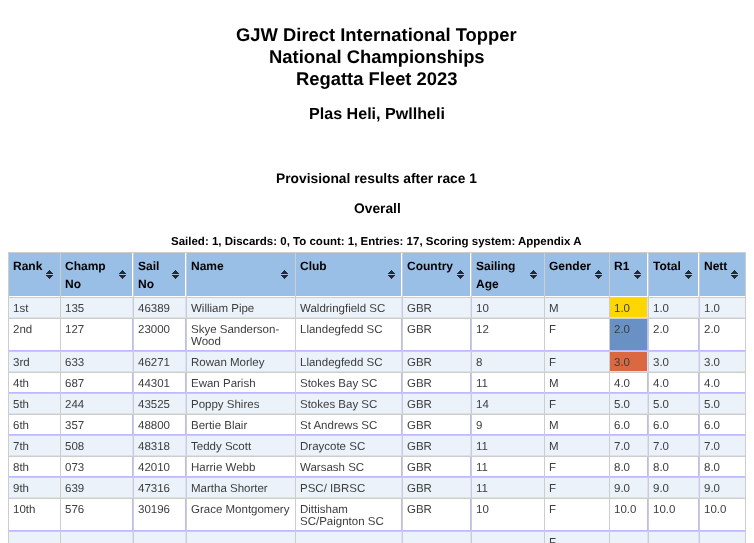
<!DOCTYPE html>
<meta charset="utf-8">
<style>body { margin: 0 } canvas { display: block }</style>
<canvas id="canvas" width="754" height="543"></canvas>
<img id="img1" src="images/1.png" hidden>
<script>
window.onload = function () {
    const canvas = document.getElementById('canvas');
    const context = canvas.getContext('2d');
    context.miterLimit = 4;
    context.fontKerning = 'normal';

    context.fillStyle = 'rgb(255, 255, 255)';
    context.fillRect(0, 0, 754, 543);
    context.fillStyle = 'rgb(205, 205, 205)';
    context.fillRect(8, 252, 738, 1);
    context.fillRect(8, 252, 1, 291);
    context.fillStyle = 'rgb(153, 191, 230)';
    context.fillRect(9, 253, 51, 43);
    context.drawImage(document.getElementById('img1'), 46, 270, 7, 9);
    context.fillStyle = 'rgb(221, 221, 255)';
    context.fillRect(9, 298, 736, 20);
    context.fillStyle = 'rgb(205, 205, 205)';
    context.fillRect(745, 318, 1, 225);
    context.fillRect(745, 252, 1, 67);
    context.fillStyle = 'rgb(187, 187, 255)';
    context.fillRect(9, 319, 736, 32);
    context.fillStyle = 'rgb(221, 221, 255)';
    context.fillRect(9, 352, 736, 20);
    context.fillStyle = 'rgb(187, 187, 255)';
    context.fillRect(9, 373, 736, 20);
    context.fillStyle = 'rgb(221, 221, 255)';
    context.fillRect(9, 394, 736, 20);
    context.fillStyle = 'rgb(187, 187, 255)';
    context.fillRect(9, 415, 736, 20);
    context.fillStyle = 'rgb(221, 221, 255)';
    context.fillRect(9, 436, 736, 20);
    context.fillStyle = 'rgb(187, 187, 255)';
    context.fillRect(9, 457, 736, 20);
    context.fillStyle = 'rgb(221, 221, 255)';
    context.fillRect(9, 478, 736, 20);
    context.fillStyle = 'rgb(187, 187, 255)';
    context.fillRect(9, 499, 736, 32);
    context.fillStyle = 'rgb(205, 205, 205)';
    context.fillRect(699, 531, 1, 12);
    context.fillRect(699, 531, 47, 1);
    context.fillRect(699, 498, 1, 34);
    context.fillRect(699, 498, 47, 1);
    context.fillRect(699, 477, 1, 22);
    context.fillRect(699, 477, 47, 1);
    context.fillRect(699, 456, 1, 22);
    context.fillRect(699, 456, 47, 1);
    context.fillRect(699, 435, 1, 22);
    context.fillRect(699, 435, 47, 1);
    context.fillRect(699, 414, 1, 22);
    context.fillRect(699, 414, 47, 1);
    context.fillRect(699, 393, 1, 22);
    context.fillRect(699, 393, 47, 1);
    context.fillRect(699, 372, 1, 22);
    context.fillRect(699, 372, 47, 1);
    context.fillRect(699, 351, 1, 22);
    context.fillRect(699, 351, 47, 1);
    context.fillRect(699, 318, 1, 34);
    context.fillRect(699, 318, 47, 1);
    context.fillRect(699, 297, 1, 22);
    context.fillRect(699, 297, 47, 1);
    context.fillRect(699, 252, 1, 46);
    context.fillStyle = 'rgb(221, 221, 255)';
    context.fillRect(132, 532, 567, 11);
    context.fillStyle = 'rgb(205, 205, 205)';
    context.fillRect(648, 531, 1, 12);
    context.fillRect(648, 531, 52, 1);
    context.fillRect(648, 498, 1, 34);
    context.fillRect(648, 498, 52, 1);
    context.fillRect(648, 477, 1, 22);
    context.fillRect(648, 477, 52, 1);
    context.fillRect(648, 456, 1, 22);
    context.fillRect(648, 456, 52, 1);
    context.fillRect(648, 435, 1, 22);
    context.fillRect(648, 435, 52, 1);
    context.fillRect(648, 414, 1, 22);
    context.fillRect(648, 414, 52, 1);
    context.fillRect(648, 393, 1, 22);
    context.fillRect(648, 393, 52, 1);
    context.fillRect(648, 372, 1, 22);
    context.fillRect(648, 372, 52, 1);
    context.fillRect(648, 351, 1, 22);
    context.fillRect(648, 351, 52, 1);
    context.fillRect(648, 318, 1, 34);
    context.fillRect(648, 318, 52, 1);
    context.fillRect(648, 297, 1, 22);
    context.fillRect(648, 297, 52, 1);
    context.fillRect(648, 252, 1, 46);
    context.fillRect(609, 531, 1, 12);
    context.fillRect(609, 531, 40, 1);
    context.fillRect(609, 498, 1, 34);
    context.fillRect(609, 498, 40, 1);
    context.fillRect(609, 477, 1, 22);
    context.fillRect(609, 477, 40, 1);
    context.fillRect(609, 456, 1, 22);
    context.fillRect(609, 456, 40, 1);
    context.fillRect(609, 435, 1, 22);
    context.fillRect(609, 435, 40, 1);
    context.fillRect(609, 414, 1, 22);
    context.fillRect(609, 414, 40, 1);
    context.fillRect(609, 393, 1, 22);
    context.fillRect(609, 393, 40, 1);
    context.fillRect(609, 372, 1, 22);
    context.fillRect(609, 372, 40, 1);
    context.fillRect(609, 351, 1, 22);
    context.fillRect(609, 351, 40, 1);
    context.fillRect(609, 318, 1, 34);
    context.fillRect(609, 318, 40, 1);
    context.fillRect(609, 297, 1, 22);
    context.fillRect(609, 297, 40, 1);
    context.fillRect(609, 252, 1, 46);
    context.fillRect(544, 531, 1, 12);
    context.fillRect(544, 531, 66, 1);
    context.fillRect(544, 498, 1, 34);
    context.fillRect(544, 498, 66, 1);
    context.fillRect(544, 477, 1, 22);
    context.fillRect(544, 477, 66, 1);
    context.fillRect(544, 456, 1, 22);
    context.fillRect(544, 456, 66, 1);
    context.fillRect(544, 435, 1, 22);
    context.fillRect(544, 435, 66, 1);
    context.fillRect(544, 414, 1, 22);
    context.fillRect(544, 414, 66, 1);
    context.fillRect(544, 393, 1, 22);
    context.fillRect(544, 393, 66, 1);
    context.fillRect(544, 372, 1, 22);
    context.fillRect(544, 372, 66, 1);
    context.fillRect(544, 351, 1, 22);
    context.fillRect(544, 351, 66, 1);
    context.fillRect(544, 318, 1, 34);
    context.fillRect(544, 318, 66, 1);
    context.fillRect(544, 297, 1, 22);
    context.fillRect(544, 297, 66, 1);
    context.fillRect(544, 252, 1, 46);
    context.fillRect(471, 531, 1, 12);
    context.fillRect(471, 531, 74, 1);
    context.fillRect(471, 498, 1, 34);
    context.fillRect(471, 498, 74, 1);
    context.fillRect(471, 477, 1, 22);
    context.fillRect(471, 477, 74, 1);
    context.fillRect(471, 456, 1, 22);
    context.fillRect(471, 456, 74, 1);
    context.fillRect(471, 435, 1, 22);
    context.fillRect(471, 435, 74, 1);
    context.fillRect(471, 414, 1, 22);
    context.fillRect(471, 414, 74, 1);
    context.fillRect(471, 393, 1, 22);
    context.fillRect(471, 393, 74, 1);
    context.fillRect(471, 372, 1, 22);
    context.fillRect(471, 372, 74, 1);
    context.fillRect(471, 351, 1, 22);
    context.fillRect(471, 351, 74, 1);
    context.fillRect(471, 318, 1, 34);
    context.fillRect(471, 318, 74, 1);
    context.fillRect(471, 297, 1, 22);
    context.fillRect(471, 297, 74, 1);
    context.fillRect(471, 252, 1, 46);
    context.fillRect(402, 531, 1, 12);
    context.fillRect(402, 531, 70, 1);
    context.fillRect(402, 498, 1, 34);
    context.fillRect(402, 498, 70, 1);
    context.fillRect(402, 477, 1, 22);
    context.fillRect(402, 477, 70, 1);
    context.fillRect(402, 456, 1, 22);
    context.fillRect(402, 456, 70, 1);
    context.fillRect(402, 435, 1, 22);
    context.fillRect(402, 435, 70, 1);
    context.fillRect(402, 414, 1, 22);
    context.fillRect(402, 414, 70, 1);
    context.fillRect(402, 393, 1, 22);
    context.fillRect(402, 393, 70, 1);
    context.fillRect(402, 372, 1, 22);
    context.fillRect(402, 372, 70, 1);
    context.fillRect(402, 351, 1, 22);
    context.fillRect(402, 351, 70, 1);
    context.fillRect(402, 318, 1, 34);
    context.fillRect(402, 318, 70, 1);
    context.fillRect(402, 297, 1, 22);
    context.fillRect(402, 297, 70, 1);
    context.fillRect(402, 252, 1, 46);
    context.fillRect(295, 531, 1, 12);
    context.fillRect(295, 531, 108, 1);
    context.fillRect(295, 498, 1, 34);
    context.fillRect(295, 498, 108, 1);
    context.fillRect(295, 477, 1, 22);
    context.fillRect(295, 477, 108, 1);
    context.fillRect(295, 456, 1, 22);
    context.fillRect(295, 456, 108, 1);
    context.fillRect(295, 435, 1, 22);
    context.fillRect(295, 435, 108, 1);
    context.fillRect(295, 414, 1, 22);
    context.fillRect(295, 414, 108, 1);
    context.fillRect(295, 393, 1, 22);
    context.fillRect(295, 393, 108, 1);
    context.fillRect(295, 372, 1, 22);
    context.fillRect(295, 372, 108, 1);
    context.fillRect(295, 351, 1, 22);
    context.fillRect(295, 351, 108, 1);
    context.fillRect(295, 318, 1, 34);
    context.fillRect(295, 318, 108, 1);
    context.fillRect(295, 297, 1, 22);
    context.fillRect(295, 297, 108, 1);
    context.fillRect(295, 252, 1, 46);
    context.fillRect(186, 531, 1, 12);
    context.fillRect(186, 531, 110, 1);
    context.fillRect(186, 498, 1, 34);
    context.fillRect(186, 498, 110, 1);
    context.fillRect(186, 477, 1, 22);
    context.fillRect(186, 477, 110, 1);
    context.fillRect(186, 456, 1, 22);
    context.fillRect(186, 456, 110, 1);
    context.fillRect(186, 435, 1, 22);
    context.fillRect(186, 435, 110, 1);
    context.fillRect(186, 414, 1, 22);
    context.fillRect(186, 414, 110, 1);
    context.fillRect(186, 393, 1, 22);
    context.fillRect(186, 393, 110, 1);
    context.fillRect(186, 372, 1, 22);
    context.fillRect(186, 372, 110, 1);
    context.fillRect(186, 351, 1, 22);
    context.fillRect(186, 351, 110, 1);
    context.fillRect(186, 318, 1, 34);
    context.fillRect(186, 318, 110, 1);
    context.fillRect(186, 297, 1, 22);
    context.fillRect(186, 297, 110, 1);
    context.fillRect(186, 252, 1, 46);
    context.fillRect(133, 531, 1, 12);
    context.fillRect(133, 531, 54, 1);
    context.fillRect(133, 498, 1, 34);
    context.fillRect(133, 498, 54, 1);
    context.fillRect(133, 477, 1, 22);
    context.fillRect(133, 477, 54, 1);
    context.fillRect(133, 456, 1, 22);
    context.fillRect(133, 456, 54, 1);
    context.fillRect(133, 435, 1, 22);
    context.fillRect(133, 435, 54, 1);
    context.fillRect(133, 414, 1, 22);
    context.fillRect(133, 414, 54, 1);
    context.fillRect(133, 393, 1, 22);
    context.fillRect(133, 393, 54, 1);
    context.fillRect(133, 372, 1, 22);
    context.fillRect(133, 372, 54, 1);
    context.fillRect(133, 351, 1, 22);
    context.fillRect(133, 351, 54, 1);
    context.fillRect(133, 318, 1, 34);
    context.fillRect(133, 318, 54, 1);
    context.fillRect(133, 297, 1, 22);
    context.fillRect(133, 297, 54, 1);
    context.fillRect(133, 252, 1, 46);
    context.fillRect(60, 531, 1, 12);
    context.fillRect(60, 531, 74, 1);
    context.fillRect(60, 498, 1, 34);
    context.fillRect(60, 498, 74, 1);
    context.fillRect(60, 477, 1, 22);
    context.fillRect(60, 477, 74, 1);
    context.fillRect(60, 456, 1, 22);
    context.fillRect(60, 456, 74, 1);
    context.fillRect(60, 435, 1, 22);
    context.fillRect(60, 435, 74, 1);
    context.fillRect(60, 414, 1, 22);
    context.fillRect(60, 414, 74, 1);
    context.fillRect(60, 393, 1, 22);
    context.fillRect(60, 393, 74, 1);
    context.fillRect(60, 372, 1, 22);
    context.fillRect(60, 372, 74, 1);
    context.fillRect(60, 351, 1, 22);
    context.fillRect(60, 351, 74, 1);
    context.fillRect(60, 318, 1, 34);
    context.fillRect(60, 318, 74, 1);
    context.fillRect(60, 297, 1, 22);
    context.fillRect(60, 297, 74, 1);
    context.fillRect(60, 252, 1, 46);
    context.fillRect(8, 297, 53, 1);
    context.fillStyle = 'rgb(153, 191, 230)';
    context.fillRect(61, 253, 71, 43);
    context.drawImage(document.getElementById('img1'), 119, 270, 7, 9);
    context.fillRect(134, 253, 51, 43);
    context.drawImage(document.getElementById('img1'), 172, 270, 7, 9);
    context.fillRect(187, 253, 108, 43);
    context.drawImage(document.getElementById('img1'), 281, 270, 7, 9);
    context.fillRect(296, 253, 105, 43);
    context.drawImage(document.getElementById('img1'), 388, 270, 7, 9);
    context.fillRect(403, 253, 67, 43);
    context.drawImage(document.getElementById('img1'), 457, 270, 7, 9);
    context.fillRect(472, 253, 72, 43);
    context.drawImage(document.getElementById('img1'), 530, 270, 7, 9);
    context.fillRect(545, 253, 64, 43);
    context.drawImage(document.getElementById('img1'), 595, 270, 7, 9);
    context.fillRect(610, 253, 37, 43);
    context.drawImage(document.getElementById('img1'), 634, 270, 7, 9);
    context.fillRect(649, 253, 49, 43);
    context.drawImage(document.getElementById('img1'), 685, 270, 7, 9);
    context.fillRect(700, 253, 45, 43);
    context.drawImage(document.getElementById('img1'), 731, 270, 7, 9);
    context.fillStyle = 'rgb(235, 242, 250)';
    context.fillRect(9, 298, 51, 19);
    context.fillStyle = 'rgb(205, 205, 205)';
    context.fillRect(8, 318, 53, 1);
    context.fillStyle = 'rgb(235, 242, 250)';
    context.fillRect(61, 298, 71, 19);
    context.fillRect(134, 298, 51, 19);
    context.fillRect(187, 298, 108, 19);
    context.fillRect(296, 298, 105, 19);
    context.fillRect(403, 298, 67, 19);
    context.fillRect(472, 298, 72, 19);
    context.fillRect(545, 298, 64, 19);
    context.fillStyle = 'rgb(255, 215, 0)';
    context.fillRect(610, 298, 37, 19);
    context.fillStyle = 'rgb(235, 242, 250)';
    context.fillRect(649, 298, 49, 19);
    context.fillRect(700, 298, 45, 19);
    context.fillStyle = 'rgb(255, 255, 255)';
    context.fillRect(9, 319, 51, 31);
    context.fillStyle = 'rgb(205, 205, 205)';
    context.fillRect(8, 351, 53, 1);
    context.fillStyle = 'rgb(255, 255, 255)';
    context.fillRect(61, 319, 71, 31);
    context.fillRect(134, 319, 51, 31);
    context.fillRect(187, 319, 108, 31);
    context.fillRect(296, 319, 105, 31);
    context.fillRect(403, 319, 67, 31);
    context.fillRect(472, 319, 72, 31);
    context.fillRect(545, 319, 64, 31);
    context.fillStyle = 'rgb(106, 145, 197)';
    context.fillRect(610, 319, 37, 31);
    context.fillStyle = 'rgb(255, 255, 255)';
    context.fillRect(649, 319, 49, 31);
    context.fillRect(700, 319, 45, 31);
    context.fillStyle = 'rgb(235, 242, 250)';
    context.fillRect(9, 352, 51, 19);
    context.fillStyle = 'rgb(205, 205, 205)';
    context.fillRect(8, 372, 53, 1);
    context.fillStyle = 'rgb(235, 242, 250)';
    context.fillRect(61, 352, 71, 19);
    context.fillRect(134, 352, 51, 19);
    context.fillRect(187, 352, 108, 19);
    context.fillRect(296, 352, 105, 19);
    context.fillRect(403, 352, 67, 19);
    context.fillRect(472, 352, 72, 19);
    context.fillRect(545, 352, 64, 19);
    context.fillStyle = 'rgb(218, 104, 65)';
    context.fillRect(610, 352, 37, 19);
    context.fillStyle = 'rgb(235, 242, 250)';
    context.fillRect(649, 352, 49, 19);
    context.fillRect(700, 352, 45, 19);
    context.fillStyle = 'rgb(255, 255, 255)';
    context.fillRect(9, 373, 51, 19);
    context.fillStyle = 'rgb(205, 205, 205)';
    context.fillRect(8, 393, 53, 1);
    context.fillStyle = 'rgb(255, 255, 255)';
    context.fillRect(61, 373, 71, 19);
    context.fillRect(134, 373, 51, 19);
    context.fillRect(187, 373, 108, 19);
    context.fillRect(296, 373, 105, 19);
    context.fillRect(403, 373, 67, 19);
    context.fillRect(472, 373, 72, 19);
    context.fillRect(545, 373, 64, 19);
    context.fillRect(610, 373, 37, 19);
    context.fillRect(649, 373, 49, 19);
    context.fillRect(700, 373, 45, 19);
    context.fillStyle = 'rgb(235, 242, 250)';
    context.fillRect(9, 394, 51, 19);
    context.fillStyle = 'rgb(205, 205, 205)';
    context.fillRect(8, 414, 53, 1);
    context.fillStyle = 'rgb(235, 242, 250)';
    context.fillRect(61, 394, 71, 19);
    context.fillRect(134, 394, 51, 19);
    context.fillRect(187, 394, 108, 19);
    context.fillRect(296, 394, 105, 19);
    context.fillRect(403, 394, 67, 19);
    context.fillRect(472, 394, 72, 19);
    context.fillRect(545, 394, 64, 19);
    context.fillRect(610, 394, 37, 19);
    context.fillRect(649, 394, 49, 19);
    context.fillRect(700, 394, 45, 19);
    context.fillStyle = 'rgb(255, 255, 255)';
    context.fillRect(9, 415, 51, 19);
    context.fillStyle = 'rgb(205, 205, 205)';
    context.fillRect(8, 435, 53, 1);
    context.fillStyle = 'rgb(255, 255, 255)';
    context.fillRect(61, 415, 71, 19);
    context.fillRect(134, 415, 51, 19);
    context.fillRect(187, 415, 108, 19);
    context.fillRect(296, 415, 105, 19);
    context.fillRect(403, 415, 67, 19);
    context.fillRect(472, 415, 72, 19);
    context.fillRect(545, 415, 64, 19);
    context.fillRect(610, 415, 37, 19);
    context.fillRect(649, 415, 49, 19);
    context.fillRect(700, 415, 45, 19);
    context.fillStyle = 'rgb(235, 242, 250)';
    context.fillRect(9, 436, 51, 19);
    context.fillStyle = 'rgb(205, 205, 205)';
    context.fillRect(8, 456, 53, 1);
    context.fillStyle = 'rgb(235, 242, 250)';
    context.fillRect(61, 436, 71, 19);
    context.fillRect(134, 436, 51, 19);
    context.fillRect(187, 436, 108, 19);
    context.fillRect(296, 436, 105, 19);
    context.fillRect(403, 436, 67, 19);
    context.fillRect(472, 436, 72, 19);
    context.fillRect(545, 436, 64, 19);
    context.fillRect(610, 436, 37, 19);
    context.fillRect(649, 436, 49, 19);
    context.fillRect(700, 436, 45, 19);
    context.fillStyle = 'rgb(255, 255, 255)';
    context.fillRect(9, 457, 51, 19);
    context.fillStyle = 'rgb(205, 205, 205)';
    context.fillRect(8, 477, 53, 1);
    context.fillStyle = 'rgb(255, 255, 255)';
    context.fillRect(61, 457, 71, 19);
    context.fillRect(134, 457, 51, 19);
    context.fillRect(187, 457, 108, 19);
    context.fillRect(296, 457, 105, 19);
    context.fillRect(403, 457, 67, 19);
    context.fillRect(472, 457, 72, 19);
    context.fillRect(545, 457, 64, 19);
    context.fillRect(610, 457, 37, 19);
    context.fillRect(649, 457, 49, 19);
    context.fillRect(700, 457, 45, 19);
    context.fillStyle = 'rgb(235, 242, 250)';
    context.fillRect(9, 478, 51, 19);
    context.fillStyle = 'rgb(205, 205, 205)';
    context.fillRect(8, 498, 53, 1);
    context.fillStyle = 'rgb(235, 242, 250)';
    context.fillRect(61, 478, 71, 19);
    context.fillRect(134, 478, 51, 19);
    context.fillRect(187, 478, 108, 19);
    context.fillRect(296, 478, 105, 19);
    context.fillRect(403, 478, 67, 19);
    context.fillRect(472, 478, 72, 19);
    context.fillRect(545, 478, 64, 19);
    context.fillRect(610, 478, 37, 19);
    context.fillRect(649, 478, 49, 19);
    context.fillRect(700, 478, 45, 19);
    context.fillStyle = 'rgb(255, 255, 255)';
    context.fillRect(9, 499, 51, 31);
    context.fillStyle = 'rgb(205, 205, 205)';
    context.fillRect(8, 531, 53, 1);
    context.fillStyle = 'rgb(255, 255, 255)';
    context.fillRect(61, 499, 71, 31);
    context.fillRect(134, 499, 51, 31);
    context.fillRect(187, 499, 108, 31);
    context.fillRect(296, 499, 105, 31);
    context.fillRect(403, 499, 67, 31);
    context.fillRect(472, 499, 72, 31);
    context.fillRect(545, 499, 64, 31);
    context.fillRect(610, 499, 37, 31);
    context.fillRect(649, 499, 49, 31);
    context.fillRect(700, 499, 45, 31);
    context.fillStyle = 'rgb(235, 242, 250)';
    context.fillRect(9, 532, 51, 11);
    context.fillRect(61, 532, 71, 11);
    context.fillRect(134, 532, 51, 11);
    context.fillRect(187, 532, 108, 11);
    context.fillRect(296, 532, 105, 11);
    context.fillRect(403, 532, 67, 11);
    context.fillRect(472, 532, 72, 11);
    context.fillRect(545, 532, 64, 11);
    context.fillRect(610, 532, 37, 11);
    context.fillRect(649, 532, 49, 11);
    context.fillRect(700, 532, 45, 11);
    context.font = 'bold 18.4px Liberation Sans';
    context.fillStyle = 'rgb(0, 0, 0)';
    context.fillText('GJW Direct International Topper', 236, 41);
    context.fillText('National Championships', 269, 63);
    context.fillText('Regatta Fleet 2023', 296, 85);
    context.font = 'bold 16.1px Liberation Sans';
    context.fillText('Plas Heli, Pwllheli', 309, 119);
    context.font = 'bold 13.8px Liberation Sans';
    context.fillText('Provisional results after race 1', 276, 183);
    context.fillText('Overall', 354, 213);
    context.font = 'bold 11.5px Liberation Sans';
    context.fillText('Sailed: 1, Discards: 0, To count: 1, Entries: 17, Scoring system: Appendix A', 171, 245);
    context.font = 'bold 12px Liberation Sans';
    context.fillText('Rank', 13, 270);
    context.fillText('Champ', 65, 270);
    context.fillText('No', 65, 288);
    context.fillText('Sail', 138, 270);
    context.fillText('No', 138, 288);
    context.fillText('Name', 191, 270);
    context.fillText('Club', 300, 270);
    context.fillText('Country', 407, 270);
    context.fillText('Sailing', 476, 270);
    context.fillText('Age', 476, 288);
    context.fillText('Gender', 549, 270);
    context.fillText('R1', 614, 270);
    context.fillText('Total', 653, 270);
    context.fillText('Nett', 704, 270);
    context.font = '11.5px Liberation Sans';
    context.fillStyle = 'rgb(61, 61, 61)';
    context.fillText('1st', 13, 312);
    context.fillText('135', 65, 312);
    context.fillText('46389', 138, 312);
    context.fillText('William Pipe', 191, 312);
    context.fillText('Waldringfield SC', 300, 312);
    context.fillText('GBR', 407, 312);
    context.fillText('10', 476, 312);
    context.fillText('M', 549, 312);
    context.fillText('1.0', 614, 312);
    context.fillText('1.0', 653, 312);
    context.fillText('1.0', 704, 312);
    context.fillText('2nd', 13, 333);
    context.fillText('127', 65, 333);
    context.fillText('23000', 138, 333);
    context.fillText('Skye Sanderson-', 191, 333);
    context.fillText('Wood', 191, 345);
    context.fillText('Llandegfedd SC', 300, 333);
    context.fillText('GBR', 407, 333);
    context.fillText('12', 476, 333);
    context.fillText('F', 549, 333);
    context.fillText('2.0', 614, 333);
    context.fillText('2.0', 653, 333);
    context.fillText('2.0', 704, 333);
    context.fillText('3rd', 13, 366);
    context.fillText('633', 65, 366);
    context.fillText('46271', 138, 366);
    context.fillText('Rowan Morley', 191, 366);
    context.fillText('Llandegfedd SC', 300, 366);
    context.fillText('GBR', 407, 366);
    context.fillText('8', 476, 366);
    context.fillText('F', 549, 366);
    context.fillText('3.0', 614, 366);
    context.fillText('3.0', 653, 366);
    context.fillText('3.0', 704, 366);
    context.fillText('4th', 13, 387);
    context.fillText('687', 65, 387);
    context.fillText('44301', 138, 387);
    context.fillText('Ewan Parish', 191, 387);
    context.fillText('Stokes Bay SC', 300, 387);
    context.fillText('GBR', 407, 387);
    context.fillText('11', 476, 387);
    context.fillText('M', 549, 387);
    context.fillText('4.0', 614, 387);
    context.fillText('4.0', 653, 387);
    context.fillText('4.0', 704, 387);
    context.fillText('5th', 13, 408);
    context.fillText('244', 65, 408);
    context.fillText('43525', 138, 408);
    context.fillText('Poppy Shires', 191, 408);
    context.fillText('Stokes Bay SC', 300, 408);
    context.fillText('GBR', 407, 408);
    context.fillText('14', 476, 408);
    context.fillText('F', 549, 408);
    context.fillText('5.0', 614, 408);
    context.fillText('5.0', 653, 408);
    context.fillText('5.0', 704, 408);
    context.fillText('6th', 13, 429);
    context.fillText('357', 65, 429);
    context.fillText('48800', 138, 429);
    context.fillText('Bertie Blair', 191, 429);
    context.fillText('St Andrews SC', 300, 429);
    context.fillText('GBR', 407, 429);
    context.fillText('9', 476, 429);
    context.fillText('M', 549, 429);
    context.fillText('6.0', 614, 429);
    context.fillText('6.0', 653, 429);
    context.fillText('6.0', 704, 429);
    context.fillText('7th', 13, 450);
    context.fillText('508', 65, 450);
    context.fillText('48318', 138, 450);
    context.fillText('Teddy Scott', 191, 450);
    context.fillText('Draycote SC', 300, 450);
    context.fillText('GBR', 407, 450);
    context.fillText('11', 476, 450);
    context.fillText('M', 549, 450);
    context.fillText('7.0', 614, 450);
    context.fillText('7.0', 653, 450);
    context.fillText('7.0', 704, 450);
    context.fillText('8th', 13, 471);
    context.fillText('073', 65, 471);
    context.fillText('42010', 138, 471);
    context.fillText('Harrie Webb', 191, 471);
    context.fillText('Warsash SC', 300, 471);
    context.fillText('GBR', 407, 471);
    context.fillText('11', 476, 471);
    context.fillText('F', 549, 471);
    context.fillText('8.0', 614, 471);
    context.fillText('8.0', 653, 471);
    context.fillText('8.0', 704, 471);
    context.fillText('9th', 13, 492);
    context.fillText('639', 65, 492);
    context.fillText('47316', 138, 492);
    context.fillText('Martha Shorter', 191, 492);
    context.fillText('PSC/ IBRSC', 300, 492);
    context.fillText('GBR', 407, 492);
    context.fillText('11', 476, 492);
    context.fillText('F', 549, 492);
    context.fillText('9.0', 614, 492);
    context.fillText('9.0', 653, 492);
    context.fillText('9.0', 704, 492);
    context.fillText('10th', 13, 513);
    context.fillText('576', 65, 513);
    context.fillText('30196', 138, 513);
    context.fillText('Grace Montgomery', 191, 513);
    context.fillText('Dittisham', 300, 513);
    context.fillText('SC/Paignton SC', 300, 525);
    context.fillText('GBR', 407, 513);
    context.fillText('10', 476, 513);
    context.fillText('F', 549, 513);
    context.fillText('10.0', 614, 513);
    context.fillText('10.0', 653, 513);
    context.fillText('10.0', 704, 513);
    context.fillText('F', 549, 546);
};
</script>
